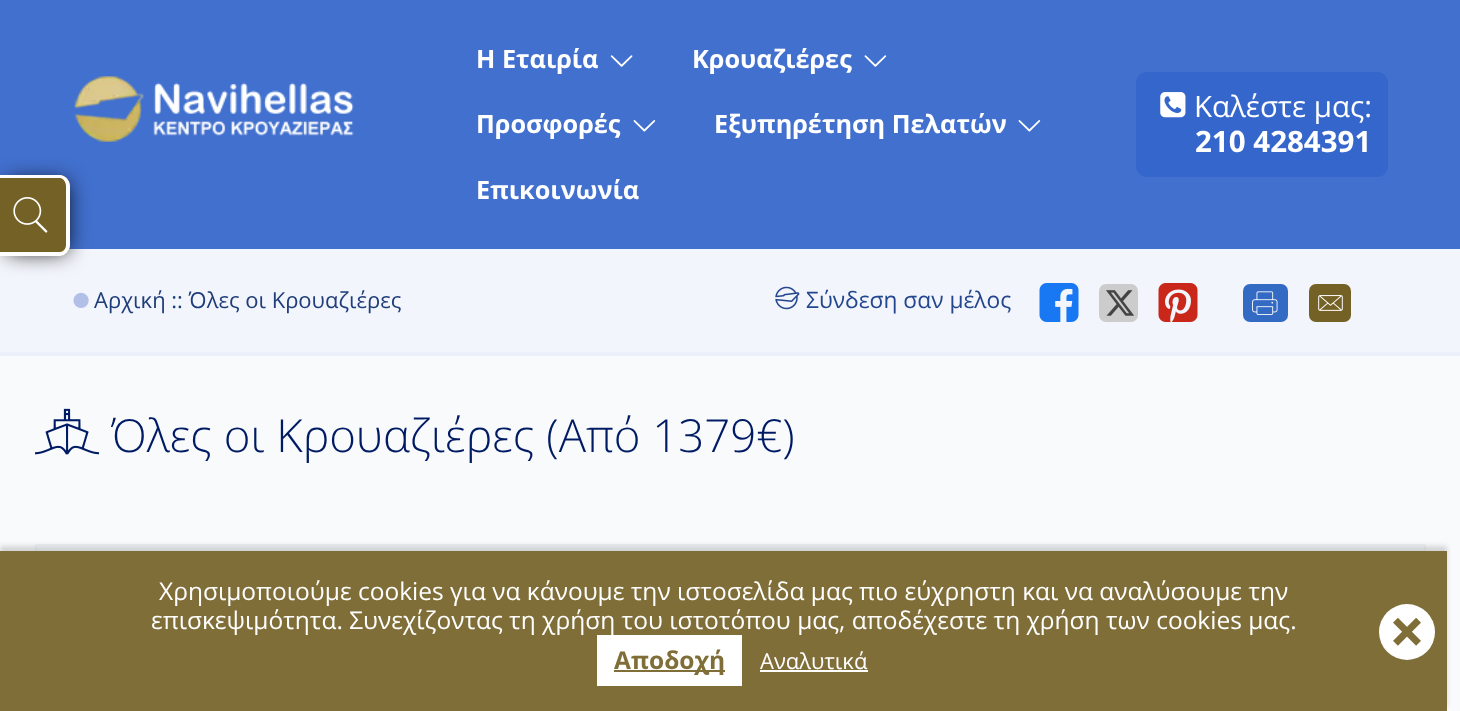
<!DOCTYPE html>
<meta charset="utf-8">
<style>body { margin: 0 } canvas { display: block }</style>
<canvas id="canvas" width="1460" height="711"></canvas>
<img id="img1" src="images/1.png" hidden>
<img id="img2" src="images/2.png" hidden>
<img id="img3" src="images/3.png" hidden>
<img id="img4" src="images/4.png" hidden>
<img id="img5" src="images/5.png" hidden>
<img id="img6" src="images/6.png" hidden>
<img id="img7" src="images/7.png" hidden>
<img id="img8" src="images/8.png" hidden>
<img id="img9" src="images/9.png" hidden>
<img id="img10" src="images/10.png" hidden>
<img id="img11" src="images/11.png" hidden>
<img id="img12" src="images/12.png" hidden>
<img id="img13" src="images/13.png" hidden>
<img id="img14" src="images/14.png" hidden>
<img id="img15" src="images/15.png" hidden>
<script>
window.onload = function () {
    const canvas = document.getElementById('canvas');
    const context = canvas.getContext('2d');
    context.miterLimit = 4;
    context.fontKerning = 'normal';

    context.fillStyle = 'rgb(248, 250, 252)';
    context.fillRect(0, 0, 1460, 711);
    context.fillStyle = 'rgb(66, 112, 206)';
    context.fillRect(0, 0, 1460, 249);
    context.fillStyle = 'rgb(242, 245, 251)';
    context.fillRect(0, 249, 1460, 103);
    context.fillStyle = 'rgb(0, 0, 0)';
    context.filter = 'blur(10.5px)';
    context.beginPath();
    context.roundRect(7, 182, 60, 70, 5);
    context.fill();
    context.filter = 'none';
    context.fillStyle = 'rgb(116, 97, 37)';
    context.beginPath();
    context.roundRect(0, 175, 70, 81, [0, 11, 11, 0]);
    context.fill();
    context.fillStyle = 'rgb(255, 255, 255)';
    context.beginPath();
    context.moveTo(0, 175);
    context.lineTo(60, 175);
    context.bezierCurveTo(65, 175, 70, 180, 70, 186);
    context.lineTo(70, 245);
    context.bezierCurveTo(70, 251, 65, 256, 60, 256);
    context.lineTo(0, 256);
    context.closePath();
    context.moveTo(0, 178);
    context.lineTo(60, 178);
    context.bezierCurveTo(63, 178, 66, 182, 66, 186);
    context.lineTo(66, 245);
    context.bezierCurveTo(66, 249, 63, 252, 60, 252);
    context.lineTo(0, 252);
    context.closePath();
    context.fill('evenodd');
    context.drawImage(document.getElementById('img1'), 13, 197, 35, 36);
    context.drawImage(document.getElementById('img2'), 74, 76, 280, 66);
    context.drawImage(document.getElementById('img3'), 610, 55, 23, 12);
    context.drawImage(document.getElementById('img4'), 864, 55, 23, 12);
    context.drawImage(document.getElementById('img5'), 633, 120, 23, 12);
    context.drawImage(document.getElementById('img5'), 1018, 120, 23, 12);
    context.fillStyle = 'rgb(52, 102, 203)';
    context.beginPath();
    context.roundRect(1136, 72, 252, 105, 11);
    context.fill();
    context.drawImage(document.getElementById('img6'), 1160, 92, 26, 26);
    context.fillStyle = 'rgb(235, 240, 250)';
    context.fillRect(0, 352, 1460, 4);
    context.drawImage(document.getElementById('img7'), 73, 292, 16, 16);
    context.drawImage(document.getElementById('img8'), 775, 286, 25, 24);
    context.drawImage(document.getElementById('img9'), 1039, 283, 40, 39);
    context.fillStyle = 'rgb(204, 204, 204)';
    context.beginPath();
    context.roundRect(1099, 284, 39, 38, 7);
    context.fill();
    context.drawImage(document.getElementById('img10'), 1106, 290, 28, 26);
    context.drawImage(document.getElementById('img11'), 1158, 283, 40, 39);
    context.fillStyle = 'rgb(51, 106, 196)';
    context.beginPath();
    context.roundRect(1243, 284, 45, 38, 7);
    context.fill();
    context.drawImage(document.getElementById('img12'), 1252, 291, 26, 24);
    context.fillStyle = 'rgb(116, 97, 37)';
    context.beginPath();
    context.roundRect(1309, 284, 42, 38, 7);
    context.fill();
    context.drawImage(document.getElementById('img13'), 1318, 295, 25, 16);
    context.drawImage(document.getElementById('img14'), 35, 408, 65, 47);
    context.fillStyle = 'rgb(245, 248, 250)';
    context.fillRect(37, 546, 1387, 5);
    context.strokeStyle = 'rgb(238, 242, 246)';
    context.lineWidth = 2;
    context.strokeRect(36, 545, 1389, 137);
    context.fillStyle = 'rgba(0, 0, 0, 0.15)';
    context.filter = 'blur(2.5px)';
    context.beginPath();
    context.rect(0, 546, 1447, 161);
    context.fill();
    context.filter = 'none';
    context.fillStyle = 'rgb(128, 110, 57)';
    context.fillRect(0, 551, 1447, 160);
    context.fillStyle = 'rgb(255, 255, 255)';
    context.fillRect(597, 635, 145, 51);
    context.fillStyle = 'rgb(128, 110, 57)';
    context.fillRect(614, 670, 111, 2);
    context.fillStyle = 'rgb(255, 255, 255)';
    context.fillRect(760, 670, 108, 2);
    context.beginPath();
    context.arc(1407, 632, 28, 0, 2 * Math.PI);
    context.fill();
    context.drawImage(document.getElementById('img15'), 1393, 618, 28, 28);
    context.font = 'bold 25.25px Open Sans';
    context.fillText('Η Εταιρία', 476, 68);
    context.fillText('Κρουαζιέρες', 692, 68);
    context.fillText('Προσφορές', 476, 133);
    context.fillText('Εξυπηρέτηση Πελατών', 714, 133);
    context.fillText('Επικοινωνία', 476, 199);
    context.font = '29.5px Open Sans';
    context.fillText('Καλέστε μας:', 1194, 117);
    context.font = 'bold 29.5px Open Sans';
    context.fillText('210 4284391', 1195, 152);
    context.font = '22px Open Sans';
    context.fillStyle = 'rgb(31, 61, 122)';
    context.fillText('Αρχική :: Όλες οι Κρουαζιέρες', 94, 308);
    context.font = '22.75px Open Sans';
    context.fillStyle = 'rgb(35, 70, 142)';
    context.fillText('Σύνδεση σαν μέλος', 806, 308);
    context.font = '300 45.5px Open Sans';
    context.fillStyle = 'rgb(0, 27, 100)';
    context.fillText('Όλες οι Κρουαζιέρες (Aπό 1379€)', 111, 452);
    context.font = '24.5px Open Sans';
    context.fillStyle = 'rgb(255, 255, 255)';
    context.fillText('Χρησιμοποιούμε cookies για να κάνουμε την ιστοσελίδα μας πιο εύχρηστη και να αναλύσουμε την', 159, 600);
    context.fillText('επισκεψιμότητα. Συνεχίζοντας τη χρήση του ιστοτόπου μας, αποδέχεστε τη χρήση των cookies μας.', 151, 629);
    context.font = 'bold 24.5px Open Sans';
    context.fillStyle = 'rgb(128, 110, 57)';
    context.fillText('Αποδοχή', 614, 669);
    context.font = '22px Open Sans';
    context.fillStyle = 'rgb(255, 255, 255)';
    context.fillText('Αναλυτικά', 760, 669);
};
</script>
